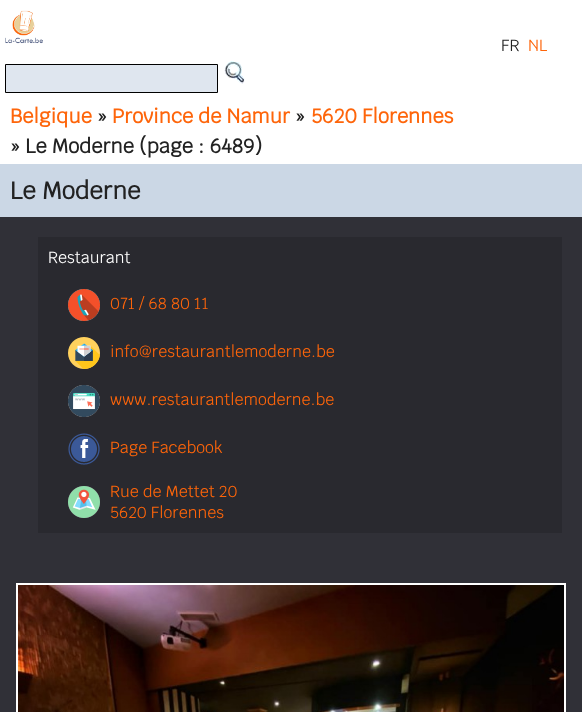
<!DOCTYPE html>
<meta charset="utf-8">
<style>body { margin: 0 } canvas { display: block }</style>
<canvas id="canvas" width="582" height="712"></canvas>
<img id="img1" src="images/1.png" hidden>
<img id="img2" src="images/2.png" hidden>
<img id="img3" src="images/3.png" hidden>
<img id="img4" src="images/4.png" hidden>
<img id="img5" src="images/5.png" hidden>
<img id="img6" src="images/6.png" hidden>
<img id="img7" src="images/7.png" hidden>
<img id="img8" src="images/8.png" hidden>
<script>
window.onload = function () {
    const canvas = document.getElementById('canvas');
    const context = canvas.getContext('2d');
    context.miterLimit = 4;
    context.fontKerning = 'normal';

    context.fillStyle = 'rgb(255, 255, 255)';
    context.fillRect(0, 0, 582, 712);
    context.drawImage(document.getElementById('img1'), 5, 10, 38, 34);
    context.fillStyle = 'rgb(223, 230, 239)';
    context.beginPath();
    context.rect(5.5, 64.5, 212, 28);
    context.fill();
    context.strokeStyle = 'rgb(0, 0, 0)';
    context.stroke();
    context.drawImage(document.getElementById('img2'), 224, 61, 21, 23);
    context.fillStyle = 'rgb(203, 215, 229)';
    context.fillRect(0, 164, 582, 53);
    context.fillStyle = 'rgb(48, 48, 55)';
    context.fillRect(0, 217, 582, 495);
    context.fillStyle = 'rgb(41, 41, 47)';
    context.fillRect(38, 237, 524, 296);
    context.drawImage(document.getElementById('img3'), 68, 289, 32, 32);
    context.drawImage(document.getElementById('img4'), 68, 337, 32, 32);
    context.drawImage(document.getElementById('img5'), 68, 385, 32, 32);
    context.drawImage(document.getElementById('img6'), 68, 433, 32, 32);
    context.drawImage(document.getElementById('img7'), 68, 486, 32, 32);
    context.strokeStyle = 'rgb(255, 255, 255)';
    context.lineWidth = 2;
    context.strokeRect(17, 584, 548, 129);
    context.drawImage(document.getElementById('img8'), 18, 585, 546, 127);
    context.font = '16px Krub';
    context.fillStyle = 'rgb(34, 34, 34)';
    context.fillText('FR', 501, 51);
    context.fillStyle = 'rgb(254, 101, 10)';
    context.fillText('NL', 528, 51);
    context.font = 'bold 20px Krub';
    context.fillText('Belgique', 10, 123);
    context.fillStyle = 'rgb(34, 34, 34)';
    context.fillText('»', 97, 123);
    context.fillStyle = 'rgb(254, 101, 10)';
    context.fillText('Province de Namur', 112, 123);
    context.fillStyle = 'rgb(34, 34, 34)';
    context.fillText('»', 295, 123);
    context.fillStyle = 'rgb(254, 101, 10)';
    context.fillText('5620 Florennes', 311, 123);
    context.fillStyle = 'rgb(34, 34, 34)';
    context.fillText('» Le Moderne (page : 6489)', 10, 153);
    context.font = 'bold 24px Krub';
    context.fillText('Le Moderne', 10, 199);
    context.font = '16px Krub';
    context.fillStyle = 'rgb(255, 255, 255)';
    context.fillText('Restaurant', 48, 263);
    context.fillStyle = 'rgb(254, 101, 10)';
    context.fillText('071 / 68 80 11', 110, 309);
    context.fillText('info@restaurantlemoderne.be', 110, 357);
    context.fillText('www.restaurantlemoderne.be', 110, 405);
    context.fillText('Page Facebook', 110, 453);
    context.fillText('Rue de Mettet 20', 110, 497);
    context.fillText('5620 Florennes', 110, 518);
};
</script>
